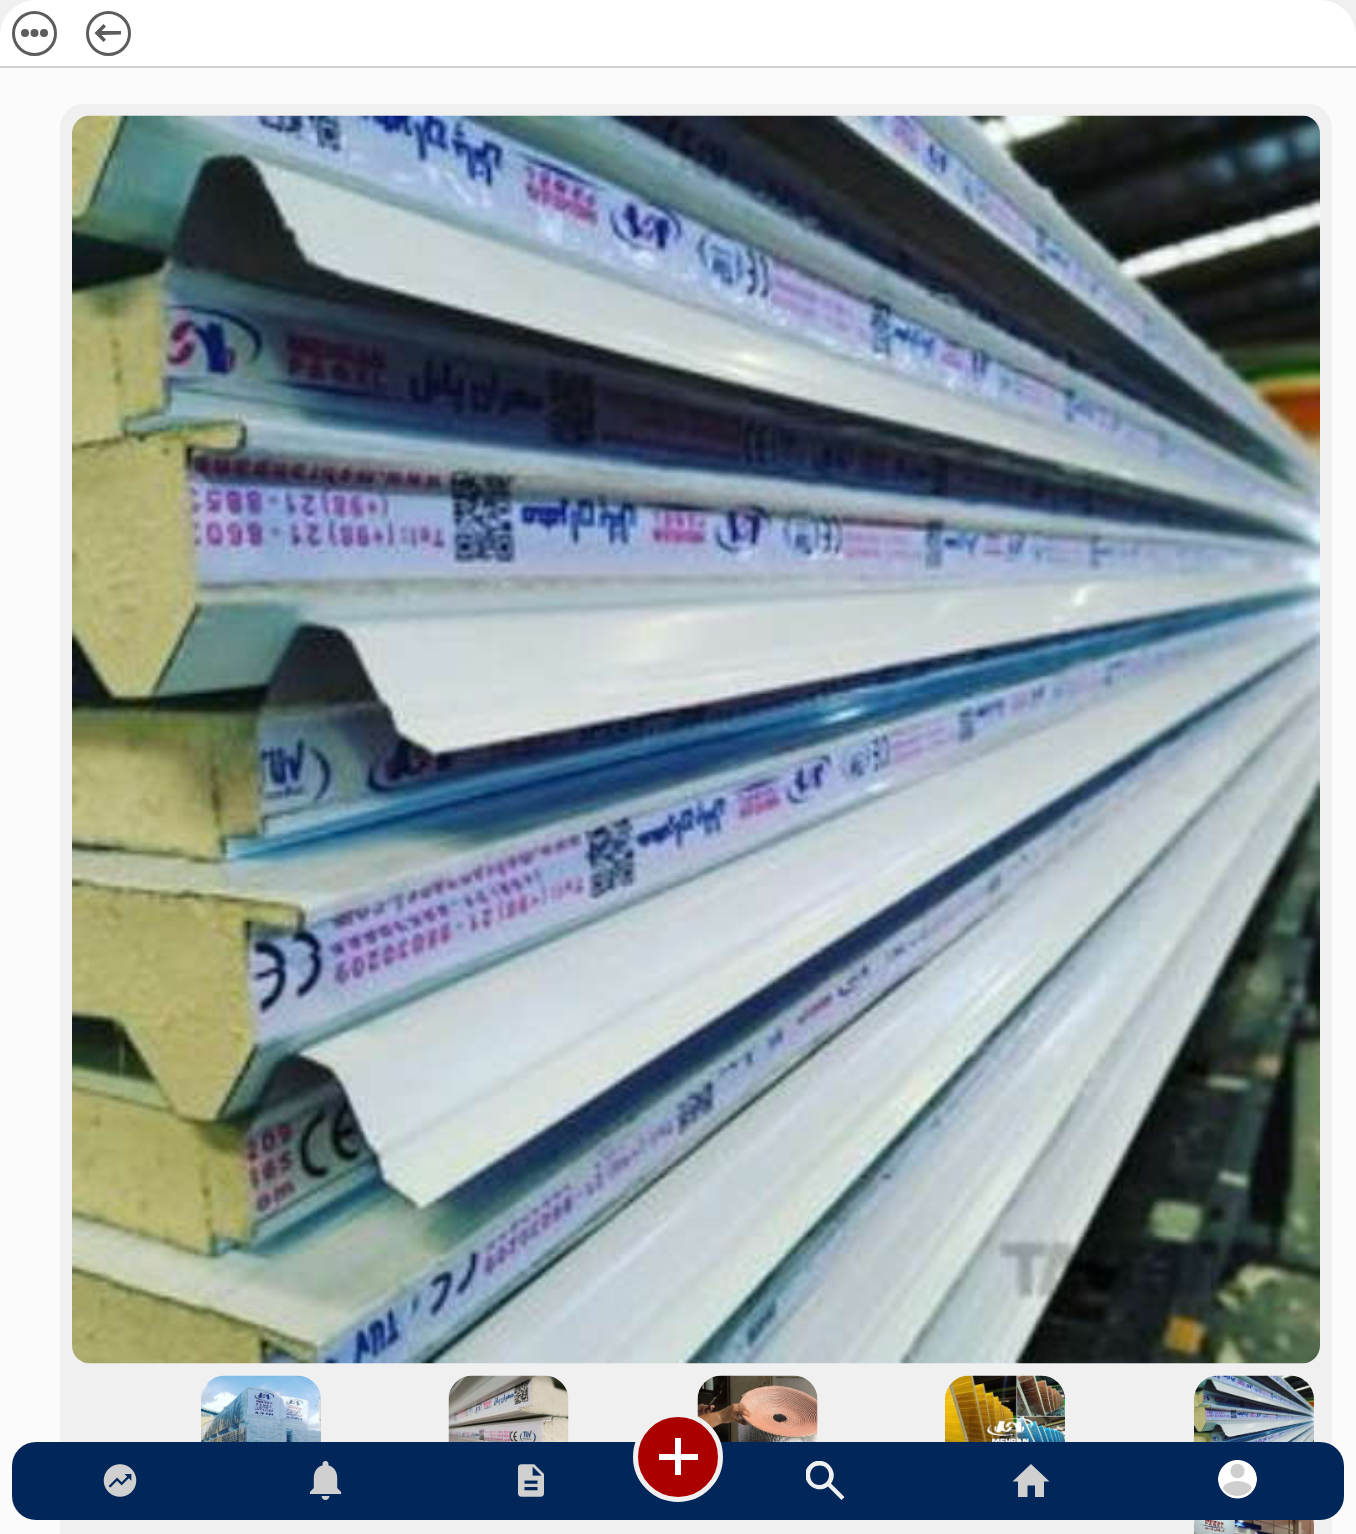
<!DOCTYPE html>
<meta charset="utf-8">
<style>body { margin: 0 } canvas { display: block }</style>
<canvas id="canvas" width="1356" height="1534"></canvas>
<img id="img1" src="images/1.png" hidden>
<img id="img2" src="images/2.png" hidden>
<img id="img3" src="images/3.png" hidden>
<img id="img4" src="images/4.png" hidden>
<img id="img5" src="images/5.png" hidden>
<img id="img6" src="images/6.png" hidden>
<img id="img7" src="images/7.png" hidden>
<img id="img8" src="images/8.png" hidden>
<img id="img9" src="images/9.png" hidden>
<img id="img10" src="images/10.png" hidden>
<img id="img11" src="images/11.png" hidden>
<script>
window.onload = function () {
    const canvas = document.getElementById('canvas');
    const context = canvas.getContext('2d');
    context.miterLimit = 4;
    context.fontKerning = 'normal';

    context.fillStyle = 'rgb(251, 251, 251)';
    context.fillRect(0, 0, 1356, 1534);
    context.fillStyle = 'rgb(240, 240, 240)';
    context.fillRect(0, 0, 1356, 36);
    context.fillStyle = 'rgb(255, 255, 255)';
    context.beginPath();
    context.roundRect(0, 0, 1356, 66, [36, 36, 0, 0]);
    context.fill();
    context.fillStyle = 'rgb(208, 208, 208)';
    context.fillRect(0, 66, 1356, 2);
    context.beginPath();
    context.arc(34.5, 33.5, 21, 0, 2 * Math.PI);
    context.strokeStyle = 'rgb(92, 92, 92)';
    context.lineWidth = 3;
    context.stroke();
    context.fillStyle = 'rgb(92, 92, 92)';
    context.beginPath();
    context.arc(25, 33, 4, 0, 2 * Math.PI);
    context.fill();
    context.beginPath();
    context.arc(34.5, 33, 4, 0, 2 * Math.PI);
    context.fill();
    context.beginPath();
    context.arc(44, 33, 4, 0, 2 * Math.PI);
    context.fill();
    context.beginPath();
    context.arc(108.5, 33.5, 21, 0, 2 * Math.PI);
    context.stroke();
    context.beginPath();
    context.moveTo(103.5, 42);
    context.lineTo(106, 39.5);
    context.lineTo(101.5, 35);
    context.lineTo(121, 34.5);
    context.lineTo(121, 31);
    context.lineTo(101.5, 31);
    context.lineTo(106, 26.5);
    context.lineTo(103.5, 24);
    context.lineTo(94.5, 33);
    context.closePath();
    context.fill();
    context.fillStyle = 'rgb(240, 240, 240)';
    context.beginPath();
    context.moveTo(84, 104);
    context.lineTo(1308, 104);
    context.bezierCurveTo(1321.5, 104, 1332, 114.5, 1332, 128);
    context.lineTo(1332, 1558);
    context.lineTo(60, 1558);
    context.lineTo(60, 128);
    context.bezierCurveTo(60, 114.5, 70.5, 104, 84, 104);
    context.closePath();
    context.fill();
    context.drawImage(document.getElementById('img1'), 72, 115, 1248, 1249);
    context.drawImage(document.getElementById('img2'), 201, 1375, 120, 67);
    context.drawImage(document.getElementById('img3'), 448, 1375, 121, 67);
    context.drawImage(document.getElementById('img4'), 697, 1375, 121, 67);
    context.drawImage(document.getElementById('img5'), 945, 1375, 120, 67);
    context.drawImage(document.getElementById('img6'), 1194, 1375, 120, 67);
    context.drawImage(document.getElementById('img7'), 1194, 1520, 120, 14);
    context.fillStyle = 'rgb(0, 38, 90)';
    context.beginPath();
    context.roundRect(12, 1442, 1332, 78, 24);
    context.fill();
    context.drawImage(document.getElementById('img8'), 103, 1464, 34, 33);
    context.drawImage(document.getElementById('img9'), 309, 1461, 33, 39);
    context.drawImage(document.getElementById('img10'), 518, 1464, 26, 33);
    context.fillStyle = 'rgb(171, 0, 0)';
    context.beginPath();
    context.arc(678, 1457, 42.5, 0, 2 * Math.PI);
    context.fill();
    context.strokeStyle = 'rgb(240, 240, 240)';
    context.lineWidth = 5;
    context.stroke();
    context.fillStyle = 'rgb(255, 255, 255)';
    context.fillRect(675, 1438, 6, 37);
    context.fillRect(659, 1454, 39, 6);
    context.save();
    context.beginPath();
    context.rect(806, 1461, 39, 39);
    context.clip();
    context.fillStyle = 'rgb(240, 240, 240)';
    context.beginPath();
    context.moveTo(831, 1483.5);
    context.bezierCurveTo(841, 1470, 822, 1452.5, 809.5, 1465);
    context.bezierCurveTo(797, 1477.5, 814.5, 1496.5, 828, 1486.5);
    context.lineTo(841.5, 1500);
    context.lineTo(844.5, 1497);
    context.closePath();
    context.moveTo(819.5, 1485);
    context.bezierCurveTo(807, 1485, 807, 1465.5, 819.5, 1465.5);
    context.bezierCurveTo(832.5, 1465.5, 832, 1485, 819.5, 1485);
    context.closePath();
    context.fill();
    context.restore();
    context.fillStyle = 'rgb(208, 208, 208)';
    context.beginPath();
    context.moveTo(1027.5, 1497);
    context.lineTo(1027.5, 1485.5);
    context.lineTo(1035, 1485.5);
    context.lineTo(1035, 1497);
    context.lineTo(1044, 1497);
    context.lineTo(1044, 1481.5);
    context.lineTo(1049.5, 1481.5);
    context.lineTo(1031, 1464);
    context.lineTo(1012.5, 1481.5);
    context.lineTo(1018, 1481.5);
    context.lineTo(1018, 1497);
    context.closePath();
    context.fill();
    context.drawImage(document.getElementById('img11'), 1218, 1460, 39, 39);
};
</script>
